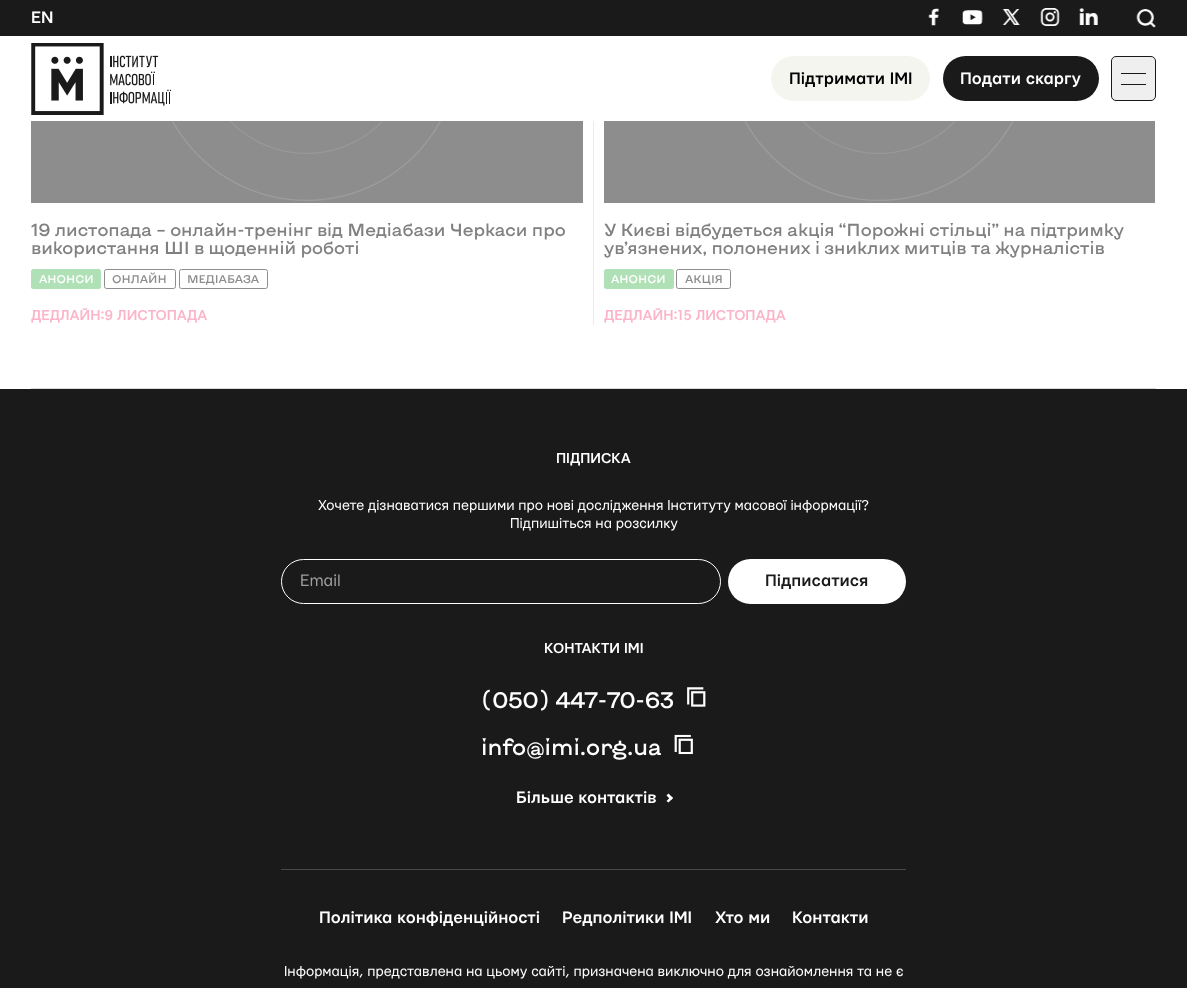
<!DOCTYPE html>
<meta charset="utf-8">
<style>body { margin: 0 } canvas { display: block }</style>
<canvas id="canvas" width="1187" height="988"></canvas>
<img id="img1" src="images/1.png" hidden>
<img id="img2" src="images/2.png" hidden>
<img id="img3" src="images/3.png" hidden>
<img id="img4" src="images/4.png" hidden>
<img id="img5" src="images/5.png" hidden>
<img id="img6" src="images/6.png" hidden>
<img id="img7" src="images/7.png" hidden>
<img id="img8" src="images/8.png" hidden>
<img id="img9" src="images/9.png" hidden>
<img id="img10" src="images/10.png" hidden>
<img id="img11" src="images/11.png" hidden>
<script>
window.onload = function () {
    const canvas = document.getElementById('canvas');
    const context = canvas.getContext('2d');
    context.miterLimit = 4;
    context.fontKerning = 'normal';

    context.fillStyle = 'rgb(255, 255, 255)';
    context.fillRect(0, 0, 1187, 988);
    context.fillStyle = 'rgb(26, 26, 26)';
    context.fillRect(0, 0, 1187, 36);
    context.drawImage(document.getElementById('img1'), 928, 8, 11, 18);
    context.drawImage(document.getElementById('img2'), 962, 10, 21, 15);
    context.drawImage(document.getElementById('img3'), 1002, 9, 18, 16);
    context.drawImage(document.getElementById('img4'), 1040, 8, 20, 18);
    context.drawImage(document.getElementById('img5'), 1079, 8, 19, 17);
    context.drawImage(document.getElementById('img6'), 1136, 9, 20, 19);
    context.drawImage(document.getElementById('img7'), 31, 43, 140, 72);
    context.fillStyle = 'rgb(245, 245, 240)';
    context.beginPath();
    context.roundRect(771, 56, 159, 45, 22.5);
    context.fill();
    context.fillStyle = 'rgb(26, 26, 26)';
    context.beginPath();
    context.roundRect(943, 56, 156, 45, 22.5);
    context.fill();
    context.fillStyle = 'rgb(239, 239, 239)';
    context.beginPath();
    context.roundRect(1111.5, 56.5, 44, 44, 4.5);
    context.fill();
    context.strokeStyle = 'rgb(26, 26, 26)';
    context.stroke();
    context.fillStyle = 'rgb(26, 26, 26)';
    context.fillRect(1121, 73, 25, 1);
    context.fillRect(1121, 84, 25, 1);
    context.fillStyle = 'rgb(217, 217, 217)';
    context.fillRect(31, 388, 1125, 1);
    context.fillStyle = 'rgb(236, 236, 236)';
    context.fillRect(593, 121, 1, 204);
    context.fillStyle = 'rgb(141, 141, 141)';
    context.fillRect(31, 121, 552, 82);
    context.drawImage(document.getElementById('img8'), 172, 121, 269, 80);
    context.fillStyle = 'rgb(176, 225, 182)';
    context.beginPath();
    context.roundRect(31, 269, 70, 20, 2.5);
    context.fill();
    context.beginPath();
    context.roundRect(104.5, 269.5, 71, 19, 2);
    context.strokeStyle = 'rgb(141, 141, 141)';
    context.stroke();
    context.beginPath();
    context.roundRect(179.5, 269.5, 88, 19, 2);
    context.stroke();
    context.fillStyle = 'rgb(141, 141, 141)';
    context.fillRect(604, 121, 551, 82);
    context.drawImage(document.getElementById('img9'), 744, 121, 270, 80);
    context.fillStyle = 'rgb(176, 225, 182)';
    context.beginPath();
    context.roundRect(604, 269, 70, 20, 2.5);
    context.fill();
    context.beginPath();
    context.roundRect(676.5, 269.5, 54, 19, 2);
    context.stroke();
    context.fillStyle = 'rgb(26, 26, 26)';
    context.fillRect(0, 389, 1187, 599);
    context.beginPath();
    context.roundRect(281.5, 559.5, 439, 44, 22);
    context.strokeStyle = 'rgb(255, 255, 255)';
    context.stroke();
    context.fillStyle = 'rgb(255, 255, 255)';
    context.beginPath();
    context.roundRect(728, 559, 178, 45, 22.5);
    context.fill();
    context.drawImage(document.getElementById('img10'), 687, 687, 19, 20);
    context.drawImage(document.getElementById('img11'), 674, 734, 19, 21);
    context.beginPath();
    context.moveTo(673, 798);
    context.lineTo(668.5, 802.5);
    context.lineTo(666.5, 801);
    context.lineTo(671, 796.5);
    context.closePath();
    context.fill();
    context.beginPath();
    context.moveTo(673, 798);
    context.lineTo(671, 800);
    context.lineTo(666.5, 795.5);
    context.lineTo(668.5, 793.5);
    context.closePath();
    context.fill();
    context.fillStyle = 'rgb(72, 72, 72)';
    context.fillRect(281, 869, 625, 1);
    context.font = '500 17.5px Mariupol';
    context.fillStyle = 'rgb(255, 255, 255)';
    context.fillText('EN', 31, 23);
    context.fillStyle = 'rgb(0, 1, 0)';
    context.fillText('Підтримати ІМІ', 789, 84);
    context.fillStyle = 'rgb(255, 255, 255)';
    context.fillText('Подати скаргу', 960, 84);
    context.font = '500 17.5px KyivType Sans';
    context.fillStyle = 'rgb(128, 128, 128)';
    context.fillText('19 листопада – онлайн-тренінг від Медіабази Черкаси про', 31, 236);
    context.fillText('використання ШІ в щоденній роботі', 31, 254);
    context.font = '500 11.25px KyivType Sans';
    context.fillStyle = 'rgb(255, 255, 255)';
    context.fillText('АНОНСИ', 39, 283);
    context.fillStyle = 'rgb(141, 141, 141)';
    context.fillText('ОНЛАЙН', 112, 283);
    context.fillText('МЕДІАБАЗА', 187, 283);
    context.font = '500 15px Mariupol';
    context.fillStyle = 'rgb(252, 181, 200)';
    context.fillText('ДЕДЛАЙН:9 ЛИСТОПАДА', 31, 320);
    context.font = '500 17.5px KyivType Sans';
    context.fillStyle = 'rgb(128, 128, 128)';
    context.fillText('У Києві відбудеться акція “Порожні стільці” на підтримку', 604, 236);
    context.fillText('ув’язнених, полонених і зниклих митців та журналістів', 604, 254);
    context.font = '500 11.25px KyivType Sans';
    context.fillStyle = 'rgb(255, 255, 255)';
    context.fillText('АНОНСИ', 611, 283);
    context.fillStyle = 'rgb(141, 141, 141)';
    context.fillText('АКЦІЯ', 685, 283);
    context.font = '500 15px Mariupol';
    context.fillStyle = 'rgb(252, 181, 200)';
    context.fillText('ДЕДЛАЙН:15 ЛИСТОПАДА', 604, 320);
    context.fillStyle = 'rgb(255, 255, 255)';
    context.fillText('ПІДПИСКА', 556, 463);
    context.font = '15px Mariupol';
    context.fillText('Хочете дізнаватися першими про нові дослідження Інституту масової інформації?', 318, 510);
    context.fillText('Підпишіться на розсилку', 510, 528);
    context.font = '17.5px Mariupol';
    context.fillStyle = 'rgb(157, 157, 157)';
    context.fillText('Email', 300, 586);
    context.font = '500 17.5px Mariupol';
    context.fillStyle = 'rgb(26, 26, 26)';
    context.fillText('Підписатися', 765, 586);
    context.font = '500 15px Mariupol';
    context.fillStyle = 'rgb(255, 255, 255)';
    context.fillText('КОНТАКТИ ІМІ', 544, 653);
    context.font = '500 22.5px KyivType Sans';
    context.fillText('(050) 447-70-63', 481, 708);
    context.fillText('info@imi.org.ua', 481, 755);
    context.font = '500 17.5px Mariupol';
    context.fillText('Більше контактів', 516, 803);
    context.fillText('Політика конфіденційності', 319, 923);
    context.fillText('Редполітики ІМІ', 562, 923);
    context.fillText('Хто ми', 715, 923);
    context.fillText('Контакти', 792, 923);
    context.font = '15px Mariupol';
    context.fillText('Інформація, представлена на цьому сайті, призначена виключно для ознайомлення та не є', 284, 976);
};
</script>
